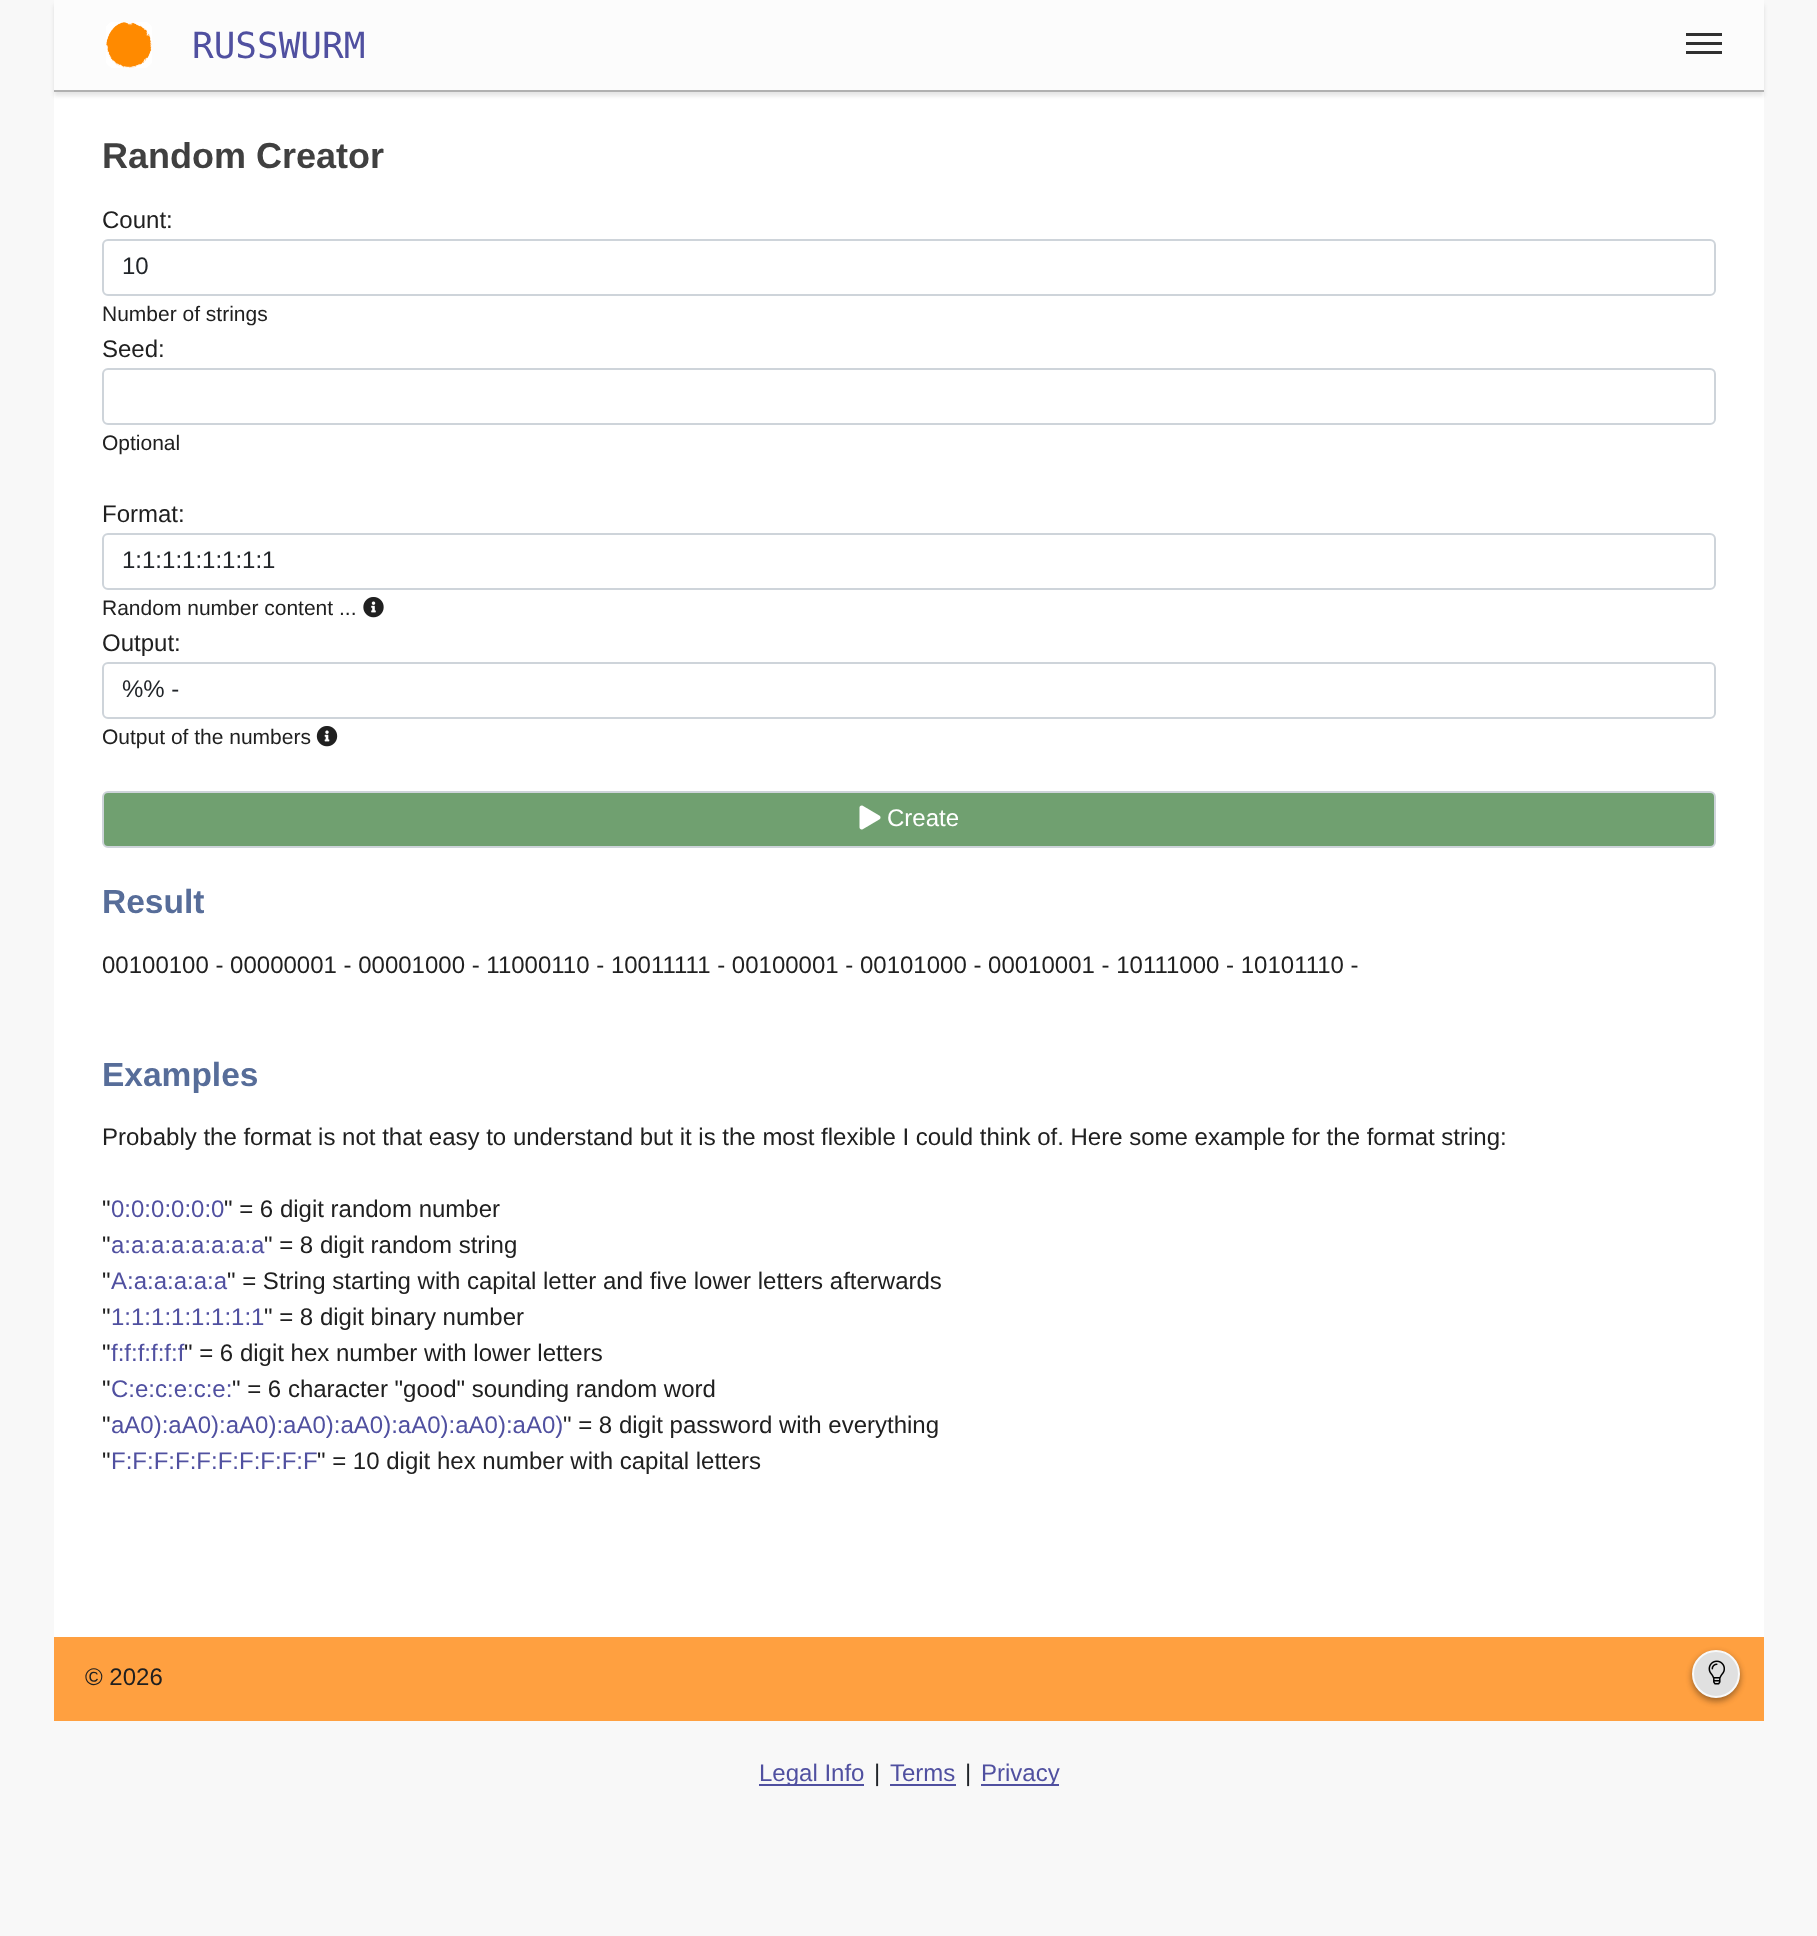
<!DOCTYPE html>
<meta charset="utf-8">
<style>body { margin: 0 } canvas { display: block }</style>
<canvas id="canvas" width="1817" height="1936"></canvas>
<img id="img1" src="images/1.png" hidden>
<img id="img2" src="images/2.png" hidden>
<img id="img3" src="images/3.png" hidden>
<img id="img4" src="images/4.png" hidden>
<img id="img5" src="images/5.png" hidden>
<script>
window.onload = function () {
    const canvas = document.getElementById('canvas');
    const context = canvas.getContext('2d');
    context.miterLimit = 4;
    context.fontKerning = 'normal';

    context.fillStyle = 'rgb(248, 248, 248)';
    context.fillRect(0, 0, 1817, 1936);
    context.fillStyle = 'rgb(255, 255, 255)';
    context.fillRect(54, 92, 1710, 1545);
    context.fillStyle = 'rgba(0, 0, 0, 0.1)';
    context.filter = 'blur(2px)';
    context.beginPath();
    context.rect(54, 5, 1710, 91);
    context.fill();
    context.filter = 'none';
    context.fillStyle = 'rgb(252, 252, 252)';
    context.fillRect(54, 0, 1710, 90);
    context.fillStyle = 'rgb(176, 176, 176)';
    context.fillRect(54, 90, 1710, 2);
    context.drawImage(document.getElementById('img1'), 106, 22, 46, 46);
    context.fillStyle = 'rgb(48, 48, 48)';
    context.fillRect(1686, 42, 36, 3);
    context.fillRect(1686, 33, 36, 3);
    context.fillRect(1686, 51, 36, 3);
    context.beginPath();
    context.roundRect(103, 240, 1612, 55, 5);
    context.strokeStyle = 'rgb(206, 212, 218)';
    context.lineWidth = 2;
    context.stroke();
    context.beginPath();
    context.roundRect(103, 369, 1612, 55, 5);
    context.stroke();
    context.beginPath();
    context.roundRect(103, 534, 1612, 55, 5);
    context.stroke();
    context.drawImage(document.getElementById('img2'), 363, 597, 21, 21);
    context.beginPath();
    context.roundRect(103, 663, 1612, 55, 5);
    context.stroke();
    context.drawImage(document.getElementById('img3'), 316, 726, 22, 21);
    context.fillStyle = 'rgb(112, 160, 112)';
    context.beginPath();
    context.roundRect(103, 792, 1612, 55, 5);
    context.fill();
    context.stroke();
    context.drawImage(document.getElementById('img4'), 859, 805, 22, 25);
    context.fillStyle = 'rgb(255, 160, 64)';
    context.fillRect(54, 1637, 1710, 84);
    context.fillStyle = 'rgba(0, 0, 0, 0.14)';
    context.filter = 'blur(3px)';
    context.beginPath();
    context.roundRect(1692, 1653, 48, 48, 24);
    context.fill();
    context.filter = 'none';
    context.fillStyle = 'rgba(0, 0, 0, 0.28)';
    context.filter = 'blur(3px)';
    context.beginPath();
    context.roundRect(1692, 1653, 48, 48, 24);
    context.fill();
    context.filter = 'none';
    context.fillStyle = 'rgb(224, 224, 224)';
    context.beginPath();
    context.arc(1716, 1674, 23, 0, 2 * Math.PI);
    context.fill();
    context.strokeStyle = 'rgb(248, 249, 250)';
    context.stroke();
    context.drawImage(document.getElementById('img5'), 1708, 1660, 17, 25);
    context.fillStyle = 'rgb(80, 80, 160)';
    context.fillRect(759, 1784, 105, 2);
    context.fillRect(890, 1784, 66, 2);
    context.fillRect(981, 1784, 78, 2);
    context.font = '36px DejaVu Sans Mono';
    context.fillText('RUSSWURM', 192, 58);
    context.font = 'bold 36px Liberation Sans';
    context.fillStyle = 'rgb(64, 64, 64)';
    context.fillText('Random Creator', 102, 168);
    context.font = '24px Liberation Sans';
    context.fillStyle = 'rgb(32, 32, 32)';
    context.fillText('Count:', 102, 228);
    context.fillStyle = 'rgb(33, 37, 41)';
    context.fillText('10', 122, 274);
    context.font = '21px Liberation Sans';
    context.fillStyle = 'rgb(32, 32, 32)';
    context.fillText('Number of strings', 102, 321);
    context.font = '24px Liberation Sans';
    context.fillText('Seed:', 102, 357);
    context.font = '21px Liberation Sans';
    context.fillText('Optional', 102, 450);
    context.font = '24px Liberation Sans';
    context.fillText('Format:', 102, 522);
    context.fillStyle = 'rgb(33, 37, 41)';
    context.fillText('1:1:1:1:1:1:1:1', 122, 568);
    context.font = '21px Liberation Sans';
    context.fillStyle = 'rgb(32, 32, 32)';
    context.fillText('Random number content ...', 102, 615);
    context.font = '24px Liberation Sans';
    context.fillText('Output:', 102, 651);
    context.fillStyle = 'rgb(33, 37, 41)';
    context.fillText('%% -', 122, 697);
    context.font = '21px Liberation Sans';
    context.fillStyle = 'rgb(32, 32, 32)';
    context.fillText('Output of the numbers', 102, 744);
    context.font = '24px Liberation Sans';
    context.fillStyle = 'rgb(255, 255, 255)';
    context.fillText('Create', 887, 826);
    context.font = 'bold 33.5px Liberation Sans';
    context.fillStyle = 'rgb(87, 109, 153)';
    context.fillText('Result', 102, 913);
    context.font = '24px Liberation Sans';
    context.fillStyle = 'rgb(32, 32, 32)';
    context.fillText('00100100 - 00000001 - 00001000 - 11000110 - 10011111 - 00100001 - 00101000 - 00010001 - 10111000 - 10101110 -', 102, 973);
    context.font = 'bold 33.5px Liberation Sans';
    context.fillStyle = 'rgb(87, 109, 153)';
    context.fillText('Examples', 102, 1086);
    context.font = '24px Liberation Sans';
    context.fillStyle = 'rgb(32, 32, 32)';
    context.fillText('Probably the format is not that easy to understand but it is the most flexible I could think of. Here some example for the format string:', 102, 1145);
    context.fillText('"', 102, 1217);
    context.fillStyle = 'rgb(80, 80, 160)';
    context.fillText('0:0:0:0:0:0', 111, 1217);
    context.fillStyle = 'rgb(32, 32, 32)';
    context.fillText('" = 6 digit random number', 224, 1217);
    context.fillText('"', 102, 1253);
    context.fillText('" = 8 digit random string', 264, 1253);
    context.fillStyle = 'rgb(80, 80, 160)';
    context.fillText('a:a:a:a:a:a:a:a', 111, 1253);
    context.fillStyle = 'rgb(32, 32, 32)';
    context.fillText('"', 102, 1289);
    context.fillStyle = 'rgb(80, 80, 160)';
    context.fillText('A:a:a:a:a:a', 111, 1289);
    context.fillStyle = 'rgb(32, 32, 32)';
    context.fillText('" = String starting with capital letter and five lower letters afterwards', 227, 1289);
    context.fillText('"', 102, 1325);
    context.fillStyle = 'rgb(80, 80, 160)';
    context.fillText('1:1:1:1:1:1:1:1', 111, 1325);
    context.fillStyle = 'rgb(32, 32, 32)';
    context.fillText('" = 8 digit binary number', 264, 1325);
    context.fillText('"', 102, 1361);
    context.fillStyle = 'rgb(80, 80, 160)';
    context.fillText('f:f:f:f:f:f', 111, 1361);
    context.fillStyle = 'rgb(32, 32, 32)';
    context.fillText('" = 6 digit hex number with lower letters', 184, 1361);
    context.fillText('"', 102, 1397);
    context.fillStyle = 'rgb(80, 80, 160)';
    context.fillText('C:e:c:e:c:e:', 111, 1397);
    context.fillStyle = 'rgb(32, 32, 32)';
    context.fillText('" = 6 character "good" sounding random word', 232, 1397);
    context.fillText('"', 102, 1433);
    context.fillStyle = 'rgb(80, 80, 160)';
    context.fillText('aA0):aA0):aA0):aA0):aA0):aA0):aA0):aA0)', 111, 1433);
    context.fillStyle = 'rgb(32, 32, 32)';
    context.fillText('" = 8 digit password with everything', 563, 1433);
    context.fillText('"', 102, 1469);
    context.fillStyle = 'rgb(80, 80, 160)';
    context.fillText('F:F:F:F:F:F:F:F:F:F', 111, 1469);
    context.fillStyle = 'rgb(32, 32, 32)';
    context.fillText('" = 10 digit hex number with capital letters', 317, 1469);
    context.fillText('© 2026', 85, 1685);
    context.fillStyle = 'rgb(80, 80, 160)';
    context.fillText('Legal Info', 759, 1781);
    context.fillStyle = 'rgb(33, 37, 41)';
    context.fillText('|', 874, 1781);
    context.fillStyle = 'rgb(80, 80, 160)';
    context.fillText('Terms', 890, 1781);
    context.fillStyle = 'rgb(33, 37, 41)';
    context.fillText('|', 965, 1781);
    context.fillStyle = 'rgb(80, 80, 160)';
    context.fillText('Privacy', 981, 1781);
};
</script>
